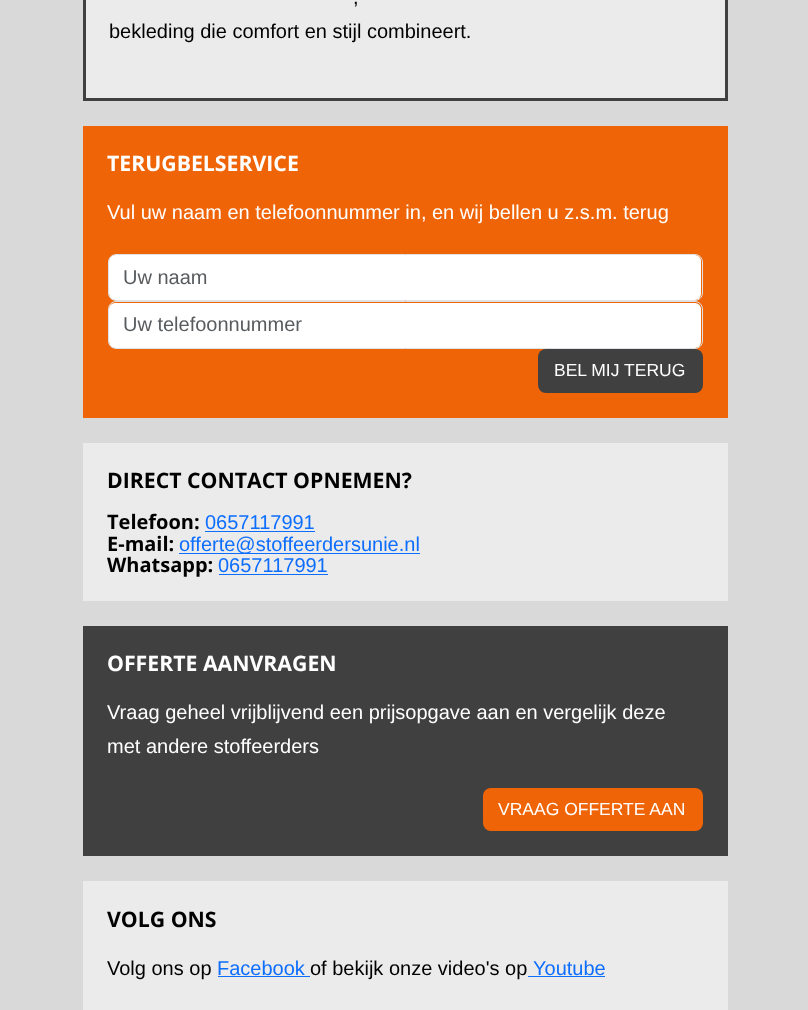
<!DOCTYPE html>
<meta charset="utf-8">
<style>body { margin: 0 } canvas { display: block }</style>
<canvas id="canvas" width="808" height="1010"></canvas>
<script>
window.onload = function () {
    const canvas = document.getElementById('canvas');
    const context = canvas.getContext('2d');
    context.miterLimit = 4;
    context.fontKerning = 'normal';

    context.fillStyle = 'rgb(217, 217, 217)';
    context.fillRect(0, 0, 808, 1010);
    context.fillStyle = 'rgb(235, 235, 235)';
    context.beginPath();
    context.rect(84.5, -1.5, 642, 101);
    context.fill();
    context.strokeStyle = 'rgb(64, 64, 65)';
    context.lineWidth = 3;
    context.stroke();
    context.fillStyle = 'rgb(239, 100, 7)';
    context.fillRect(83, 126, 645, 292);
    context.fillStyle = 'rgb(255, 255, 255)';
    context.beginPath();
    context.roundRect(109, 255, 592, 45, 6);
    context.fill();
    context.beginPath();
    context.roundRect(108.5, 254.5, 594, 46, 7.5);
    context.strokeStyle = 'rgb(222, 226, 230)';
    context.lineWidth = 1;
    context.stroke();
    context.beginPath();
    context.roundRect(109, 303, 592, 45, 6);
    context.fill();
    context.beginPath();
    context.roundRect(108.5, 301.5, 594, 47, 7.5);
    context.stroke();
    context.fillStyle = 'rgb(64, 64, 65)';
    context.beginPath();
    context.roundRect(538, 349, 165, 44, 8);
    context.fill();
    context.fillStyle = 'rgb(235, 235, 235)';
    context.fillRect(83, 443, 645, 158);
    context.fillStyle = 'rgb(13, 110, 253)';
    context.fillRect(205, 531, 110, 1);
    context.fillRect(179, 553, 241, 1);
    context.fillRect(219, 574, 109, 1);
    context.fillStyle = 'rgb(64, 64, 65)';
    context.fillRect(83, 626, 645, 230);
    context.fillStyle = 'rgb(239, 100, 7)';
    context.beginPath();
    context.roundRect(483, 788, 220, 43, 8);
    context.fill();
    context.fillStyle = 'rgb(235, 235, 235)';
    context.fillRect(83, 881, 645, 129);
    context.fillStyle = 'rgb(13, 110, 253)';
    context.fillRect(218, 976, 92, 1);
    context.fillRect(528, 976, 77, 1);
    context.font = '20px Liberation Sans';
    context.fillStyle = 'rgb(0, 0, 0)';
    context.fillText(',', 353, 4);
    context.fillText('bekleding die comfort en stijl combineert.', 109, 38);
    context.font = 'bold 21.25px Open Sans';
    context.fillStyle = 'rgb(255, 255, 255)';
    context.fillText('TERUGBELSERVICE', 107, 171);
    context.font = '20px Liberation Sans';
    context.fillText('Vul uw naam en telefoonnummer in, en wij bellen u z.s.m. terug', 107, 219);
    context.fillStyle = 'rgb(89, 92, 95)';
    context.fillText('Uw naam', 123, 284);
    context.fillText('Uw telefoonnummer', 123, 331);
    context.font = '17.5px Liberation Sans';
    context.fillStyle = 'rgb(255, 255, 255)';
    context.fillText('BEL MIJ TERUG', 554, 376);
    context.font = 'bold 21.25px Open Sans';
    context.fillStyle = 'rgb(0, 0, 0)';
    context.fillText('DIRECT CONTACT OPNEMEN?', 107, 488);
    context.font = 'bold 20px Open Sans';
    context.fillText('Telefoon:', 107, 529);
    context.font = '20px Liberation Sans';
    context.fillStyle = 'rgb(13, 110, 253)';
    context.fillText('0657117991', 205, 529);
    context.font = 'bold 20px Open Sans';
    context.fillStyle = 'rgb(0, 0, 0)';
    context.fillText('E-mail:', 107, 551);
    context.font = '20px Liberation Sans';
    context.fillStyle = 'rgb(13, 110, 253)';
    context.fillText('offerte@stoffeerdersunie.nl', 179, 551);
    context.font = 'bold 20px Open Sans';
    context.fillStyle = 'rgb(0, 0, 0)';
    context.fillText('Whatsapp:', 107, 572);
    context.font = '20px Liberation Sans';
    context.fillStyle = 'rgb(13, 110, 253)';
    context.fillText('0657117991', 218, 572);
    context.font = 'bold 21.25px Open Sans';
    context.fillStyle = 'rgb(255, 255, 255)';
    context.fillText('OFFERTE AANVRAGEN', 107, 671);
    context.font = '20px Liberation Sans';
    context.fillText('Vraag geheel vrijblijvend een prijsopgave aan en vergelijk deze', 107, 719);
    context.fillText('met andere stoffeerders', 107, 753);
    context.font = '17.5px Liberation Sans';
    context.fillText('VRAAG OFFERTE AAN', 498, 815);
    context.font = 'bold 21.25px Open Sans';
    context.fillStyle = 'rgb(0, 0, 0)';
    context.fillText('VOLG ONS', 107, 927);
    context.font = '20px Liberation Sans';
    context.fillText('Volg ons op', 107, 975);
    context.fillStyle = 'rgb(13, 110, 253)';
    context.fillText('Facebook', 217, 975);
    context.fillStyle = 'rgb(0, 0, 0)';
    context.fillText('of bekijk onze video\'s op', 310, 975);
    context.fillStyle = 'rgb(13, 110, 253)';
    context.fillText('Youtube', 533, 975);
};
</script>
